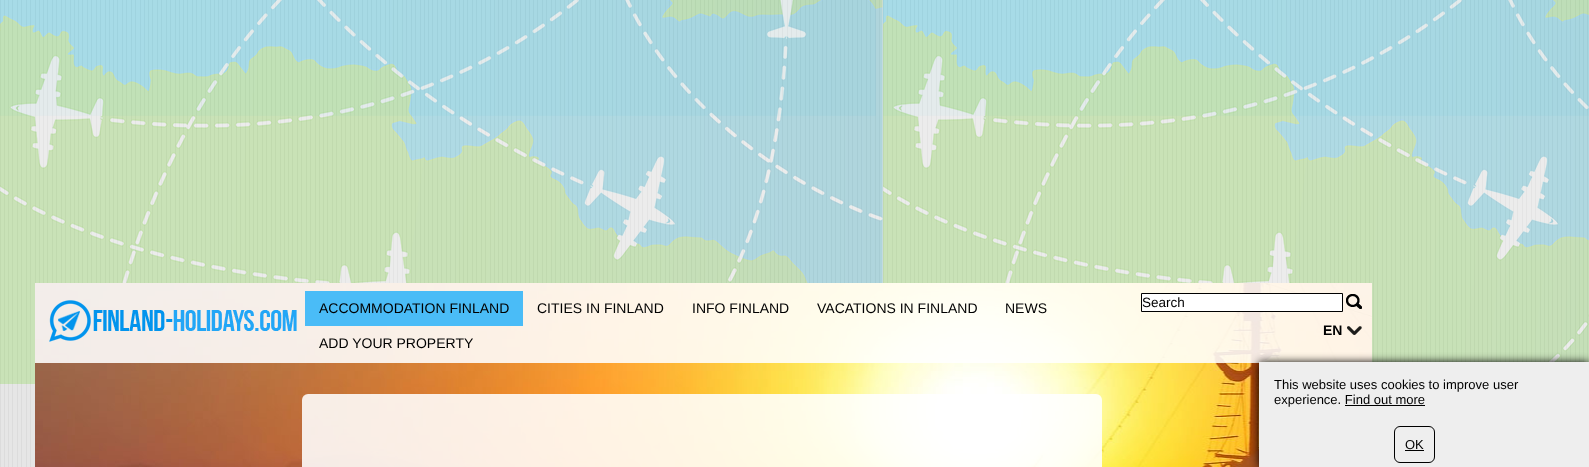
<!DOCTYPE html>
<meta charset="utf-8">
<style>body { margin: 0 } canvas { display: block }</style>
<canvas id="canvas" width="1589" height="467"></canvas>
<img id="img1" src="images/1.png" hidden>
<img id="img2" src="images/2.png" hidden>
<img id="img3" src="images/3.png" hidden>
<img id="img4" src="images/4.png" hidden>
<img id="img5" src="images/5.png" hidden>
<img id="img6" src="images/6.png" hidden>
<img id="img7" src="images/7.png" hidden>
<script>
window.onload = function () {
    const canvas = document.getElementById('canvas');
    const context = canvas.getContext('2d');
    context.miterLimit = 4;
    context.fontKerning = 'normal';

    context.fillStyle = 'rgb(255, 255, 255)';
    context.fillRect(0, 0, 1589, 467);
    context.drawImage(document.getElementById('img1'), 0, 0, 1589, 467);
    context.drawImage(document.getElementById('img2'), 0, 0, 1589, 384);
    context.drawImage(document.getElementById('img3'), 35, 283, 1337, 184);
    context.fillStyle = 'rgba(255, 255, 255, 0.88)';
    context.fillRect(35, 283, 1337, 80);
    context.drawImage(document.getElementById('img4'), 49, 300, 248, 42);
    context.fillStyle = 'rgb(74, 188, 247)';
    context.fillRect(305, 291, 218, 35);
    context.fillStyle = 'rgb(255, 255, 255)';
    context.beginPath();
    context.rect(1141.5, 293.5, 201, 18);
    context.fill();
    context.strokeStyle = 'rgb(0, 0, 0)';
    context.stroke();
    context.drawImage(document.getElementById('img5'), 1346, 294, 16, 15);
    context.drawImage(document.getElementById('img6'), 1347, 326, 15, 9);
    context.drawImage(document.getElementById('img7'), 302, 394, 800, 73);
    context.fillStyle = 'rgb(0, 0, 0)';
    context.filter = 'blur(4px)';
    context.beginPath();
    context.rect(1259, 362, 330, 105);
    context.fill();
    context.filter = 'none';
    context.fillStyle = 'rgb(238, 238, 238)';
    context.fillRect(1259, 362, 330, 105);
    context.fillStyle = 'rgb(0, 0, 0)';
    context.fillRect(1345, 405, 80, 1);
    context.beginPath();
    context.roundRect(1394.5, 426.5, 40, 36, 5.5);
    context.stroke();
    context.fillRect(1405, 450, 19, 1);
    context.font = '14px Liberation Sans';
    context.fillText('ACCOMMODATION FINLAND', 319, 313);
    context.fillText('CITIES IN FINLAND', 537, 313);
    context.fillText('INFO FINLAND', 692, 313);
    context.fillText('VACATIONS IN FINLAND', 817, 313);
    context.fillText('NEWS', 1005, 313);
    context.fillText('ADD YOUR PROPERTY', 319, 348);
    context.font = '13.5px Liberation Sans';
    context.fillText('Search', 1142, 307);
    context.font = 'bold 14px Liberation Sans';
    context.fillText('EN', 1323, 335);
    context.font = '13px Liberation Sans';
    context.fillText('This website uses cookies to improve user', 1274, 389);
    context.fillText('experience. Find out more', 1274, 404);
    context.fillText('OK', 1405, 449);
};
</script>
